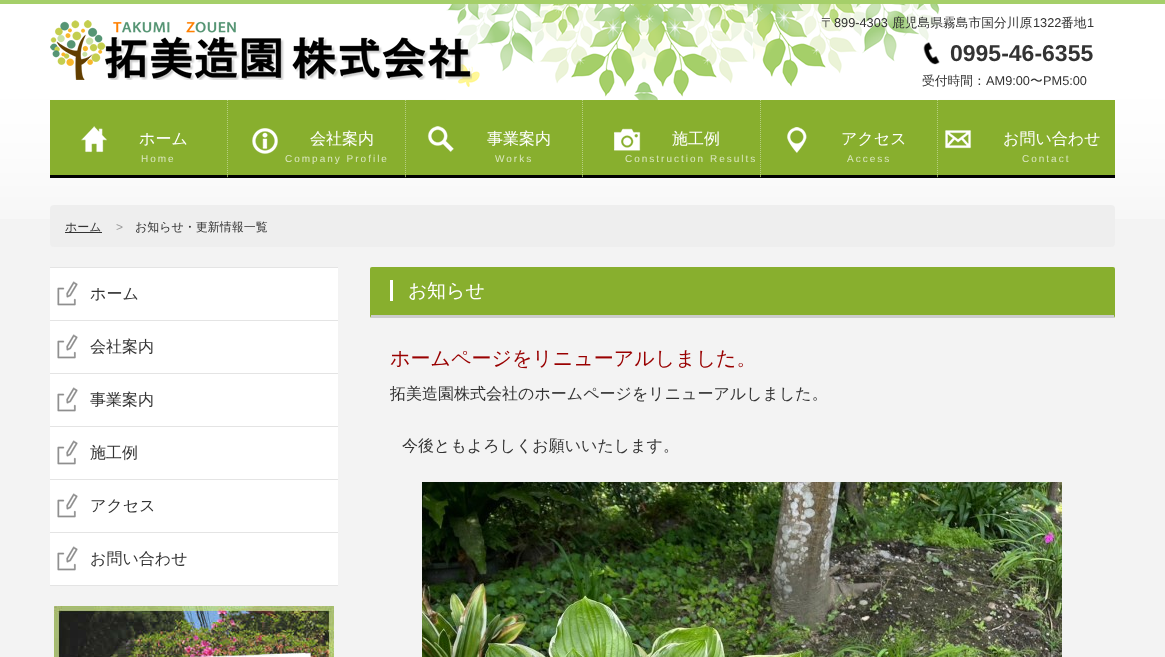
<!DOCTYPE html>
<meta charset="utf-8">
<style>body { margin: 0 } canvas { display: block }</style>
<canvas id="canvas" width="1165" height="657"></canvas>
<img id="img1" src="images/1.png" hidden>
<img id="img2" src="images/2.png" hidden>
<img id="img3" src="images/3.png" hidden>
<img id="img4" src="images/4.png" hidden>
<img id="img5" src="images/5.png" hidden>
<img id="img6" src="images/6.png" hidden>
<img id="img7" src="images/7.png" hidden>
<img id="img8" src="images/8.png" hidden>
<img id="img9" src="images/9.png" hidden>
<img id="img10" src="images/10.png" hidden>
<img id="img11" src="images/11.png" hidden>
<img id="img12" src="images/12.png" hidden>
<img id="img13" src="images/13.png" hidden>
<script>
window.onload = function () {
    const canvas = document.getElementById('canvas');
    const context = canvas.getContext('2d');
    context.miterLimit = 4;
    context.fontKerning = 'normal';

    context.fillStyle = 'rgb(243, 243, 243)';
    context.fillRect(0, 0, 1165, 657);
    context.drawImage(document.getElementById('img1'), 0, 0, 1165, 219);
    context.drawImage(document.getElementById('img2'), 446, 4, 494, 96);
    context.drawImage(document.getElementById('img3'), 50, 20, 422, 60);
    context.drawImage(document.getElementById('img4'), 923, 42, 17, 23);
    context.fillStyle = 'rgb(136, 175, 46)';
    context.fillRect(50, 100, 177, 75);
    context.fillStyle = 'rgb(0, 0, 0)';
    context.fillRect(50, 175, 177, 3);
    context.drawImage(document.getElementById('img5'), 81, 126, 26, 27);
    context.fillStyle = 'rgb(136, 175, 46)';
    context.fillRect(227, 100, 888, 78);
    context.fillStyle = 'rgb(0, 0, 0)';
    context.beginPath();
    context.moveTo(405, 178);
    context.lineTo(227, 178);
    context.lineTo(228, 175);
    context.lineTo(405, 175);
    context.closePath();
    context.fill();
    context.beginPath();
    context.moveTo(227.5, 100);
    context.lineTo(227.5, 178);
    context.strokeStyle = 'rgba(255, 255, 255, 0.4)';
    context.setLineDash([1, 1]);
    context.stroke();
    context.drawImage(document.getElementById('img6'), 252, 128, 26, 26);
    context.beginPath();
    context.moveTo(582, 178);
    context.lineTo(405, 178);
    context.lineTo(406, 175);
    context.lineTo(582, 175);
    context.closePath();
    context.fill();
    context.beginPath();
    context.moveTo(405.5, 100);
    context.lineTo(405.5, 178);
    context.stroke();
    context.drawImage(document.getElementById('img7'), 427, 126, 27, 26);
    context.beginPath();
    context.moveTo(760, 178);
    context.lineTo(582, 178);
    context.lineTo(583, 175);
    context.lineTo(760, 175);
    context.closePath();
    context.fill();
    context.beginPath();
    context.moveTo(582.5, 100);
    context.lineTo(582.5, 178);
    context.stroke();
    context.drawImage(document.getElementById('img8'), 614, 128, 27, 23);
    context.beginPath();
    context.moveTo(937, 178);
    context.lineTo(760, 178);
    context.lineTo(761, 175);
    context.lineTo(937, 175);
    context.closePath();
    context.fill();
    context.beginPath();
    context.moveTo(760.5, 100);
    context.lineTo(760.5, 178);
    context.stroke();
    context.drawImage(document.getElementById('img9'), 787, 127, 20, 26);
    context.beginPath();
    context.moveTo(1115, 178);
    context.lineTo(937, 178);
    context.lineTo(938, 175);
    context.lineTo(1115, 175);
    context.closePath();
    context.fill();
    context.beginPath();
    context.moveTo(937.5, 100);
    context.lineTo(937.5, 178);
    context.stroke();
    context.drawImage(document.getElementById('img10'), 945, 130, 27, 19);
    context.fillStyle = 'rgb(238, 238, 238)';
    context.beginPath();
    context.roundRect(50, 205, 1065, 42, 4);
    context.fill();
    context.fillStyle = 'rgb(51, 51, 51)';
    context.fillRect(65, 232, 37, 1);
    context.fillStyle = 'rgb(228, 228, 228)';
    context.fillRect(50, 267, 288, 1);
    context.fillRect(50, 320, 288, 1);
    context.fillStyle = 'rgb(255, 255, 255)';
    context.fillRect(50, 268, 288, 52);
    context.drawImage(document.getElementById('img11'), 57, 281, 21, 25);
    context.fillStyle = 'rgb(228, 228, 228)';
    context.fillRect(50, 373, 288, 1);
    context.fillStyle = 'rgb(255, 255, 255)';
    context.fillRect(50, 321, 288, 52);
    context.drawImage(document.getElementById('img11'), 57, 334, 21, 25);
    context.fillStyle = 'rgb(228, 228, 228)';
    context.fillRect(50, 426, 288, 1);
    context.fillStyle = 'rgb(255, 255, 255)';
    context.fillRect(50, 374, 288, 52);
    context.drawImage(document.getElementById('img11'), 57, 387, 21, 25);
    context.fillStyle = 'rgb(228, 228, 228)';
    context.fillRect(50, 479, 288, 1);
    context.fillStyle = 'rgb(255, 255, 255)';
    context.fillRect(50, 427, 288, 52);
    context.drawImage(document.getElementById('img11'), 57, 440, 21, 25);
    context.fillStyle = 'rgb(228, 228, 228)';
    context.fillRect(50, 532, 288, 1);
    context.fillStyle = 'rgb(255, 255, 255)';
    context.fillRect(50, 480, 288, 52);
    context.drawImage(document.getElementById('img11'), 57, 493, 21, 25);
    context.fillStyle = 'rgb(228, 228, 228)';
    context.fillRect(50, 585, 288, 1);
    context.fillStyle = 'rgb(255, 255, 255)';
    context.fillRect(50, 533, 288, 52);
    context.drawImage(document.getElementById('img11'), 57, 546, 21, 25);
    context.drawImage(document.getElementById('img12'), 54, 606, 280, 51);
    context.fillStyle = 'rgb(136, 175, 46)';
    context.beginPath();
    context.roundRect(370, 267, 745, 51, 2);
    context.fill();
    context.fillStyle = 'rgb(204, 204, 204)';
    context.fillRect(371, 315, 743, 3);
    context.fillStyle = 'rgb(255, 255, 255)';
    context.fillRect(390, 280, 3, 21);
    context.drawImage(document.getElementById('img13'), 422, 482, 640, 175);
    context.font = '500 12.75px WenQuanYi Zen Hei';
    context.fillStyle = 'rgb(51, 51, 51)';
    context.fillText('〒', 821, 27);
    context.font = '12.75px Liberation Sans';
    context.fillText('899-4303', 834, 27);
    context.font = '500 12.75px WenQuanYi Zen Hei';
    context.fillText('鹿児島県霧島市国分川原', 892, 27);
    context.font = '12.75px Liberation Sans';
    context.fillText('1322', 1033, 27);
    context.font = '500 12.75px WenQuanYi Zen Hei';
    context.fillText('番地', 1061, 27);
    context.font = '12.75px Liberation Sans';
    context.fillText('1', 1087, 27);
    context.font = 'bold 23px Liberation Sans';
    context.fillText('0995-46-6355', 950, 61);
    context.font = '500 12.75px WenQuanYi Zen Hei';
    context.fillText('受付時間：', 922, 85);
    context.font = '12.75px Liberation Sans';
    context.fillText('AM9:00', 986, 85);
    context.font = '500 12.75px WenQuanYi Zen Hei';
    context.fillText('〜', 1030, 85);
    context.font = '12.75px Liberation Sans';
    context.fillText('PM5:00', 1043, 85);
    context.font = '500 16px WenQuanYi Zen Hei';
    context.fillStyle = 'rgb(255, 255, 255)';
    context.fillText('ホーム', 139, 144);
    context.letterSpacing = '2px';
    context.font = '10px Liberation Sans';
    context.fillStyle = 'rgb(219, 231, 192)';
    context.fillText('Home', 141, 162);
    context.letterSpacing = '0px';
    context.font = '500 16px WenQuanYi Zen Hei';
    context.fillStyle = 'rgb(255, 255, 255)';
    context.fillText('会社案内', 310, 144);
    context.letterSpacing = '2px';
    context.font = '10px Liberation Sans';
    context.fillStyle = 'rgb(219, 231, 192)';
    context.fillText('Company Profile', 285, 162);
    context.letterSpacing = '0px';
    context.font = '500 16px WenQuanYi Zen Hei';
    context.fillStyle = 'rgb(255, 255, 255)';
    context.fillText('事業案内', 487, 144);
    context.letterSpacing = '2px';
    context.font = '10px Liberation Sans';
    context.fillStyle = 'rgb(219, 231, 192)';
    context.fillText('Works', 495, 162);
    context.letterSpacing = '0px';
    context.font = '500 16px WenQuanYi Zen Hei';
    context.fillStyle = 'rgb(255, 255, 255)';
    context.fillText('施工例', 672, 144);
    context.letterSpacing = '2px';
    context.font = '10px Liberation Sans';
    context.fillStyle = 'rgb(219, 231, 192)';
    context.fillText('Construction Results', 625, 162);
    context.letterSpacing = '0px';
    context.font = '500 16px WenQuanYi Zen Hei';
    context.fillStyle = 'rgb(255, 255, 255)';
    context.fillText('アクセス', 841, 144);
    context.letterSpacing = '2px';
    context.font = '10px Liberation Sans';
    context.fillStyle = 'rgb(219, 231, 192)';
    context.fillText('Access', 847, 162);
    context.letterSpacing = '0px';
    context.font = '500 16px WenQuanYi Zen Hei';
    context.fillStyle = 'rgb(255, 255, 255)';
    context.fillText('お問い合わせ', 1003, 144);
    context.letterSpacing = '2px';
    context.font = '10px Liberation Sans';
    context.fillStyle = 'rgb(219, 231, 192)';
    context.fillText('Contact', 1022, 162);
    context.letterSpacing = '0px';
    context.font = '500 12px WenQuanYi Zen Hei';
    context.fillStyle = 'rgb(51, 51, 51)';
    context.fillText('ホーム', 65, 231);
    context.font = '12px Liberation Sans';
    context.fillStyle = 'rgb(153, 153, 153)';
    context.fillText('>', 116, 231);
    context.font = '500 12px WenQuanYi Zen Hei';
    context.fillStyle = 'rgb(51, 51, 51)';
    context.fillText('お知らせ・更新情報一覧', 135, 231);
    context.font = '500 16px WenQuanYi Zen Hei';
    context.fillText('ホーム', 90, 299);
    context.fillText('会社案内', 90, 352);
    context.fillText('事業案内', 90, 405);
    context.fillText('施工例', 90, 458);
    context.fillText('アクセス', 90, 511);
    context.fillText('お問い合わせ', 90, 564);
    context.font = '19px Noto Sans';
    context.fillStyle = 'rgb(255, 255, 255)';
    context.fillText('お', 408, 297);
    context.font = '500 19px WenQuanYi Zen Hei';
    context.fillText('知らせ', 427, 297);
    context.font = '500 20px WenQuanYi Zen Hei';
    context.fillStyle = 'rgb(153, 0, 0)';
    context.fillText('ホームページをリニューアルしました。', 390, 365);
    context.font = '500 16px WenQuanYi Zen Hei';
    context.fillStyle = 'rgb(51, 51, 51)';
    context.fillText('拓美造園株式会社のホームページをリニューアルしました。', 390, 399);
    context.fillText('今後ともよろしくお願いいたします。', 402, 451);
};
</script>
